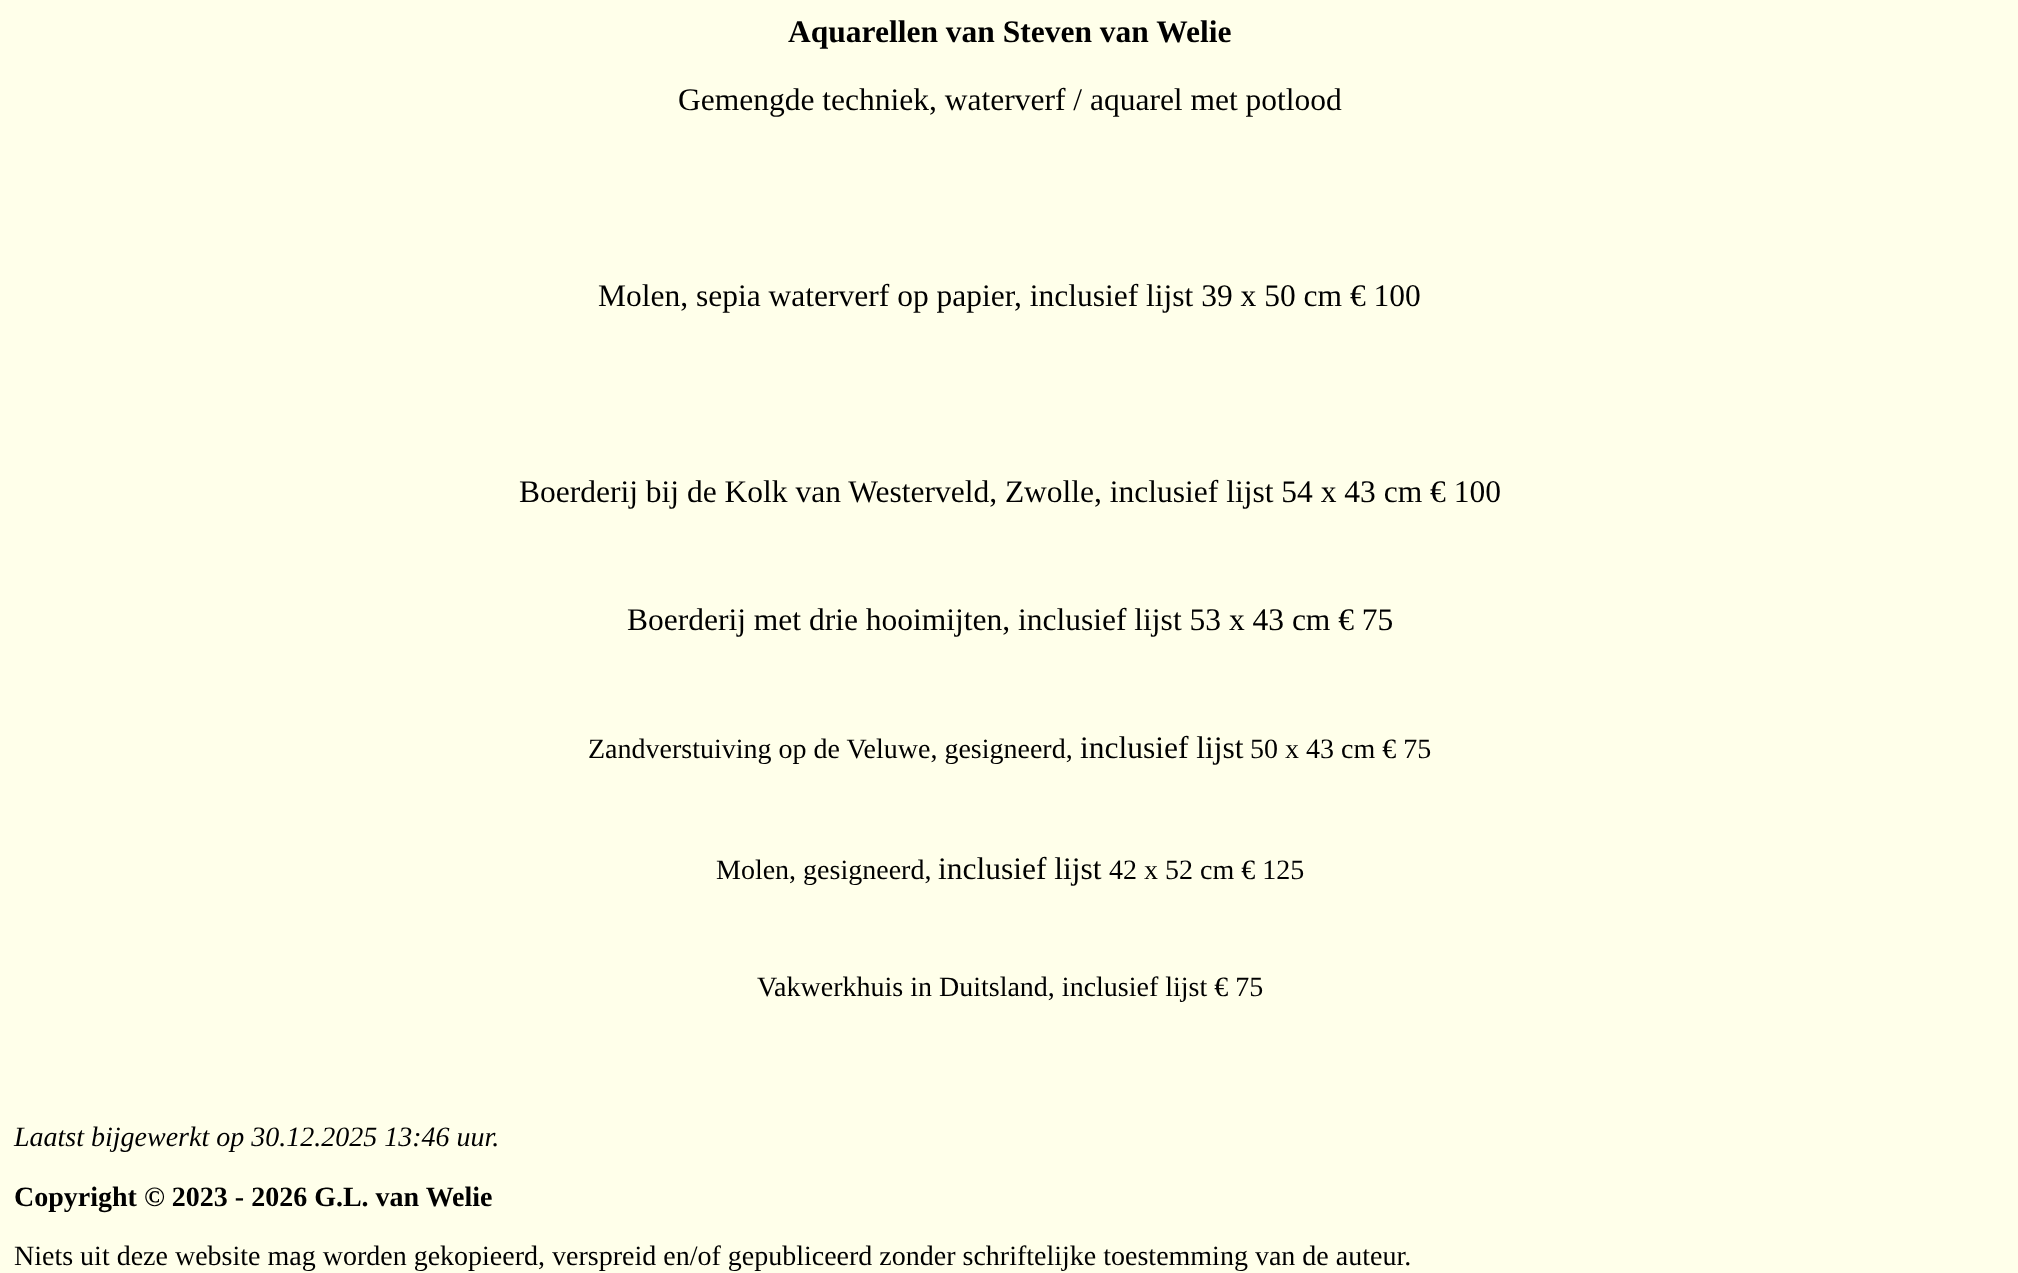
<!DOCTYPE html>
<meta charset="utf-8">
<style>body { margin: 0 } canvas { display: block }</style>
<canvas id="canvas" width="2018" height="1273"></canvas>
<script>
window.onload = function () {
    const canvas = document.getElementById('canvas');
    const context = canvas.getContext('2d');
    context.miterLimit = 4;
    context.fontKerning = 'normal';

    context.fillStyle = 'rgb(255, 255, 234)';
    context.fillRect(0, 0, 2018, 1273);
    context.font = 'bold 31.5px Liberation Serif';
    context.fillStyle = 'rgb(0, 0, 0)';
    context.fillText('Aquarellen van Steven van Welie', 788, 42);
    context.font = '31.5px Liberation Serif';
    context.fillText('Gemengde techniek, waterverf / aquarel met potlood', 678, 110);
    context.fillText('Molen, sepia waterverf op papier, inclusief lijst 39 x 50 cm € 100', 598, 306);
    context.fillText('Boerderij bij de Kolk van Westerveld, Zwolle, inclusief lijst 54 x 43 cm € 100', 519, 502);
    context.fillText('Boerderij met drie hooimijten, inclusief lijst 53 x 43 cm € 75', 627, 630);
    context.font = '28px Liberation Serif';
    context.fillText('Zandverstuiving op de Veluwe, gesigneerd,', 588, 758);
    context.font = '31.5px Liberation Serif';
    context.fillText('inclusief lijst', 1080, 758);
    context.font = '28px Liberation Serif';
    context.fillText('50 x 43 cm € 75', 1250, 758);
    context.fillText('Molen, gesigneerd,', 716, 879);
    context.font = '31.5px Liberation Serif';
    context.fillText('inclusief lijst', 938, 879);
    context.font = '28px Liberation Serif';
    context.fillText('42 x 52 cm € 125', 1109, 879);
    context.fillText('Vakwerkhuis in Duitsland, inclusief lijst € 75', 757, 996);
    context.font = 'italic 28px Liberation Serif';
    context.fillText('Laatst bijgewerkt op 30.12.2025 13:46 uur.', 14, 1146);
    context.font = 'bold 28px Liberation Serif';
    context.fillText('Copyright © 2023 - 2026 G.L. van Welie', 14, 1206);
    context.font = '28px Liberation Serif';
    context.fillText('Niets uit deze website mag worden gekopieerd, verspreid en/of gepubliceerd zonder schriftelijke toestemming van de auteur.', 14, 1265);
};
</script>
